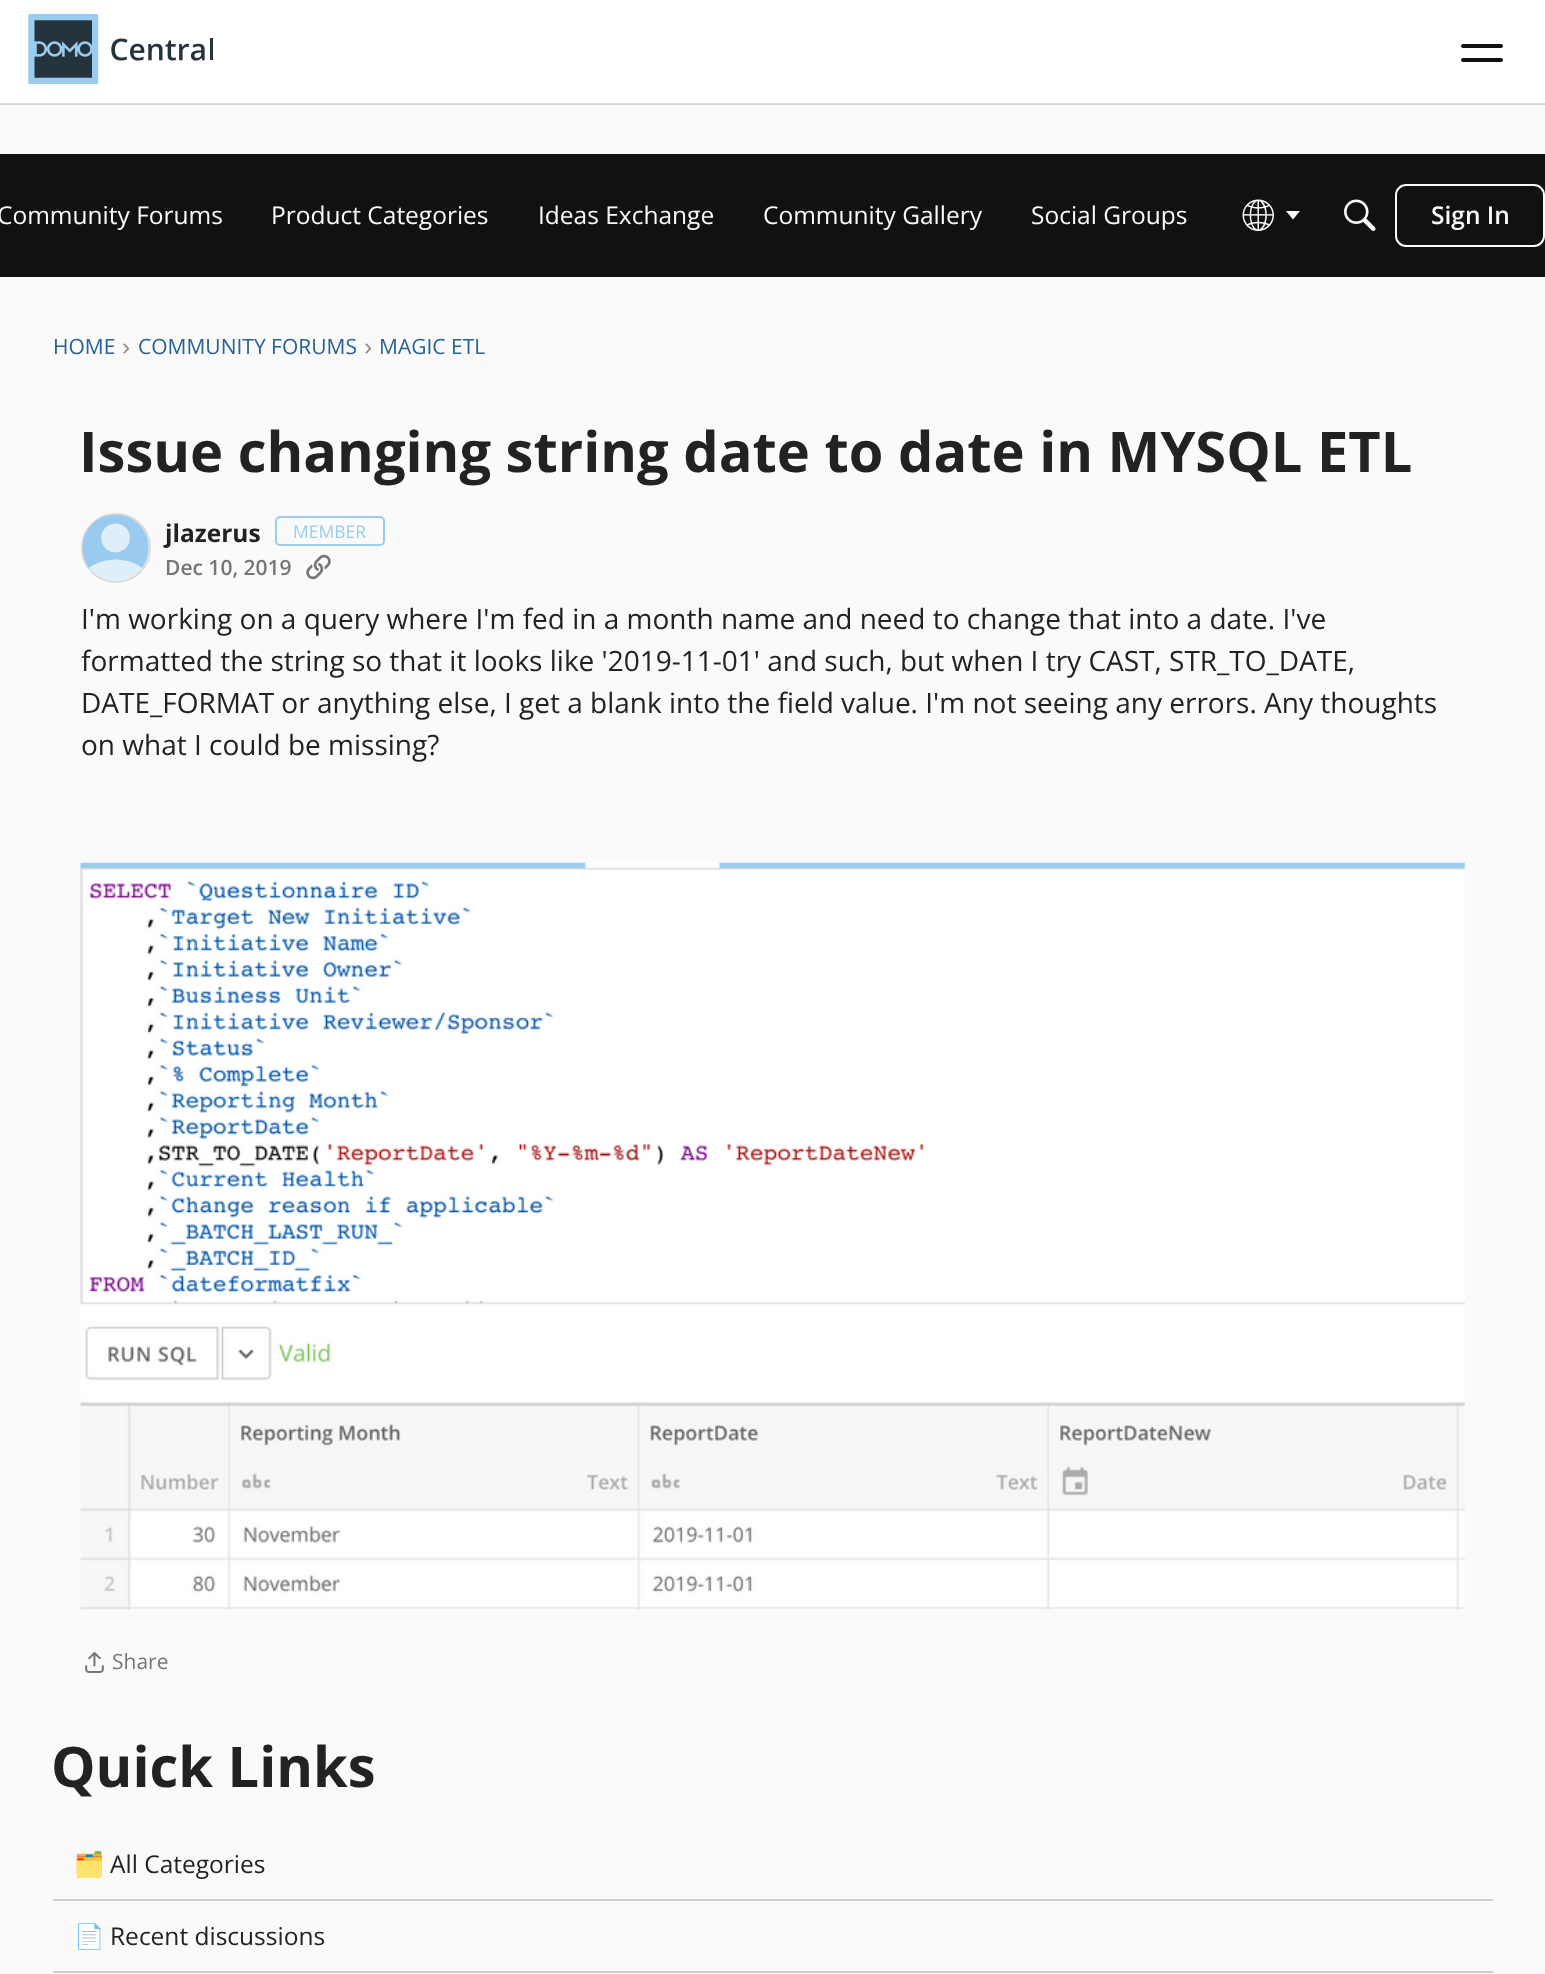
<!DOCTYPE html>
<meta charset="utf-8">
<style>body { margin: 0 } canvas { display: block }</style>
<canvas id="canvas" width="1545" height="1974"></canvas>
<img id="img1" src="images/1.png" hidden>
<img id="img2" src="images/2.png" hidden>
<img id="img3" src="images/3.png" hidden>
<img id="img4" src="images/4.png" hidden>
<img id="img5" src="images/5.png" hidden>
<img id="img6" src="images/6.png" hidden>
<img id="img7" src="images/7.png" hidden>
<script>
window.onload = function () {
    const canvas = document.getElementById('canvas');
    const context = canvas.getContext('2d');
    context.miterLimit = 4;
    context.fontKerning = 'normal';

    context.fillStyle = 'rgb(250, 250, 250)';
    context.fillRect(0, 0, 1545, 1974);
    context.fillStyle = 'rgb(255, 255, 255)';
    context.fillRect(0, 0, 1545, 103);
    context.fillStyle = 'rgb(217, 217, 217)';
    context.fillRect(0, 103, 1545, 2);
    context.drawImage(document.getElementById('img1'), 28, 14, 185, 70);
    context.fillStyle = 'rgb(17, 17, 17)';
    context.beginPath();
    context.roundRect(1461, 44, 42, 4, 2);
    context.fill();
    context.beginPath();
    context.roundRect(1461, 58, 42, 4, 2);
    context.fill();
    context.fillRect(0, 154, 1545, 123);
    context.drawImage(document.getElementById('img2'), 1242, 199, 32, 32);
    context.fillStyle = 'rgb(250, 250, 250)';
    context.beginPath();
    context.moveTo(1286, 211);
    context.lineTo(1300, 211);
    context.lineTo(1293, 219.5);
    context.closePath();
    context.fill();
    context.drawImage(document.getElementById('img3'), 1344, 199, 32, 32);
    context.beginPath();
    context.roundRect(1396, 185, 148, 61, 10);
    context.strokeStyle = 'rgb(250, 250, 250)';
    context.lineWidth = 2;
    context.stroke();
    context.beginPath();
    context.arc(116, 548, 34, 0, 2 * Math.PI);
    context.strokeStyle = 'rgb(218, 218, 218)';
    context.stroke();
    context.drawImage(document.getElementById('img4'), 82, 514, 67, 67);
    context.beginPath();
    context.roundRect(276, 517, 108, 28, 4);
    context.strokeStyle = 'rgb(153, 204, 238)';
    context.stroke();
    context.drawImage(document.getElementById('img5'), 306, 554, 25, 26);
    context.drawImage(document.getElementById('img6'), 80, 862, 1385, 748);
    context.drawImage(document.getElementById('img7'), 85, 1652, 19, 21);
    context.fillStyle = 'rgb(207, 207, 207)';
    context.fillRect(53, 1899, 1440, 2);
    context.fillRect(53, 1971, 1440, 2);
    context.font = '24.5px Open Sans';
    context.fillStyle = 'rgb(250, 250, 250)';
    context.fillText('Community Forums', -3, 224);
    context.fillText('Product Categories', 271, 224);
    context.fillText('Ideas Exchange', 538, 224);
    context.fillText('Community Gallery', 763, 224);
    context.fillText('Social Groups', 1031, 224);
    context.font = '600 24.5px Open Sans';
    context.fillText('Sign In', 1431, 224);
    context.font = '21px Open Sans';
    context.fillStyle = 'rgb(39, 98, 150)';
    context.fillText('HOME', 53, 354);
    context.font = '24.5px Liberation Sans';
    context.fillStyle = 'rgb(142, 142, 142)';
    context.fillText('›', 122, 355);
    context.font = '21px Open Sans';
    context.fillStyle = 'rgb(39, 98, 150)';
    context.fillText('COMMUNITY FORUMS', 138, 354);
    context.font = '24.5px Liberation Sans';
    context.fillStyle = 'rgb(142, 142, 142)';
    context.fillText('›', 364, 355);
    context.font = '21px Open Sans';
    context.fillStyle = 'rgb(39, 98, 150)';
    context.fillText('MAGIC ETL', 379, 354);
    context.font = 'bold 56px Open Sans';
    context.fillStyle = 'rgb(34, 34, 34)';
    context.fillText('Issue changing string date to date in MYSQL ETL', 79, 472);
    context.font = 'bold 24.5px Open Sans';
    context.fillText('jlazerus', 165, 542);
    context.font = '17.5px Open Sans';
    context.fillStyle = 'rgb(153, 204, 238)';
    context.fillText('MEMBER', 293, 538);
    context.font = '600 21px Open Sans';
    context.fillStyle = 'rgb(118, 118, 118)';
    context.fillText('Dec 10, 2019', 165, 575);
    context.font = '28px Open Sans';
    context.fillStyle = 'rgb(34, 34, 34)';
    context.fillText('I\'m working on a query where I\'m fed in a month name and need to change that into a date. I\'ve', 81, 629);
    context.fillText('formatted the string so that it looks like \'2019-11-01\' and such, but when I try CAST, STR_TO_DATE,', 81, 671);
    context.fillText('DATE_FORMAT or anything else, I get a blank into the field value. I\'m not seeing any errors. Any thoughts', 81, 713);
    context.fillText('on what I could be missing?', 81, 755);
    context.font = '21px Open Sans';
    context.fillStyle = 'rgb(118, 118, 118)';
    context.fillText('Share', 112, 1669);
    context.font = 'bold 56px Open Sans';
    context.fillStyle = 'rgb(34, 34, 34)';
    context.fillText('Quick Links', 51, 1787);
    context.font = '24.5px Noto Color Emoji';
    context.fillText('🗂️', 74, 1873);
    context.font = '24.5px Open Sans';
    context.fillText('All Categories', 110, 1873);
    context.font = '24.5px Noto Color Emoji';
    context.fillText('📄', 74, 1945);
    context.font = '24.5px Open Sans';
    context.fillText('Recent discussions', 110, 1945);
};
</script>
